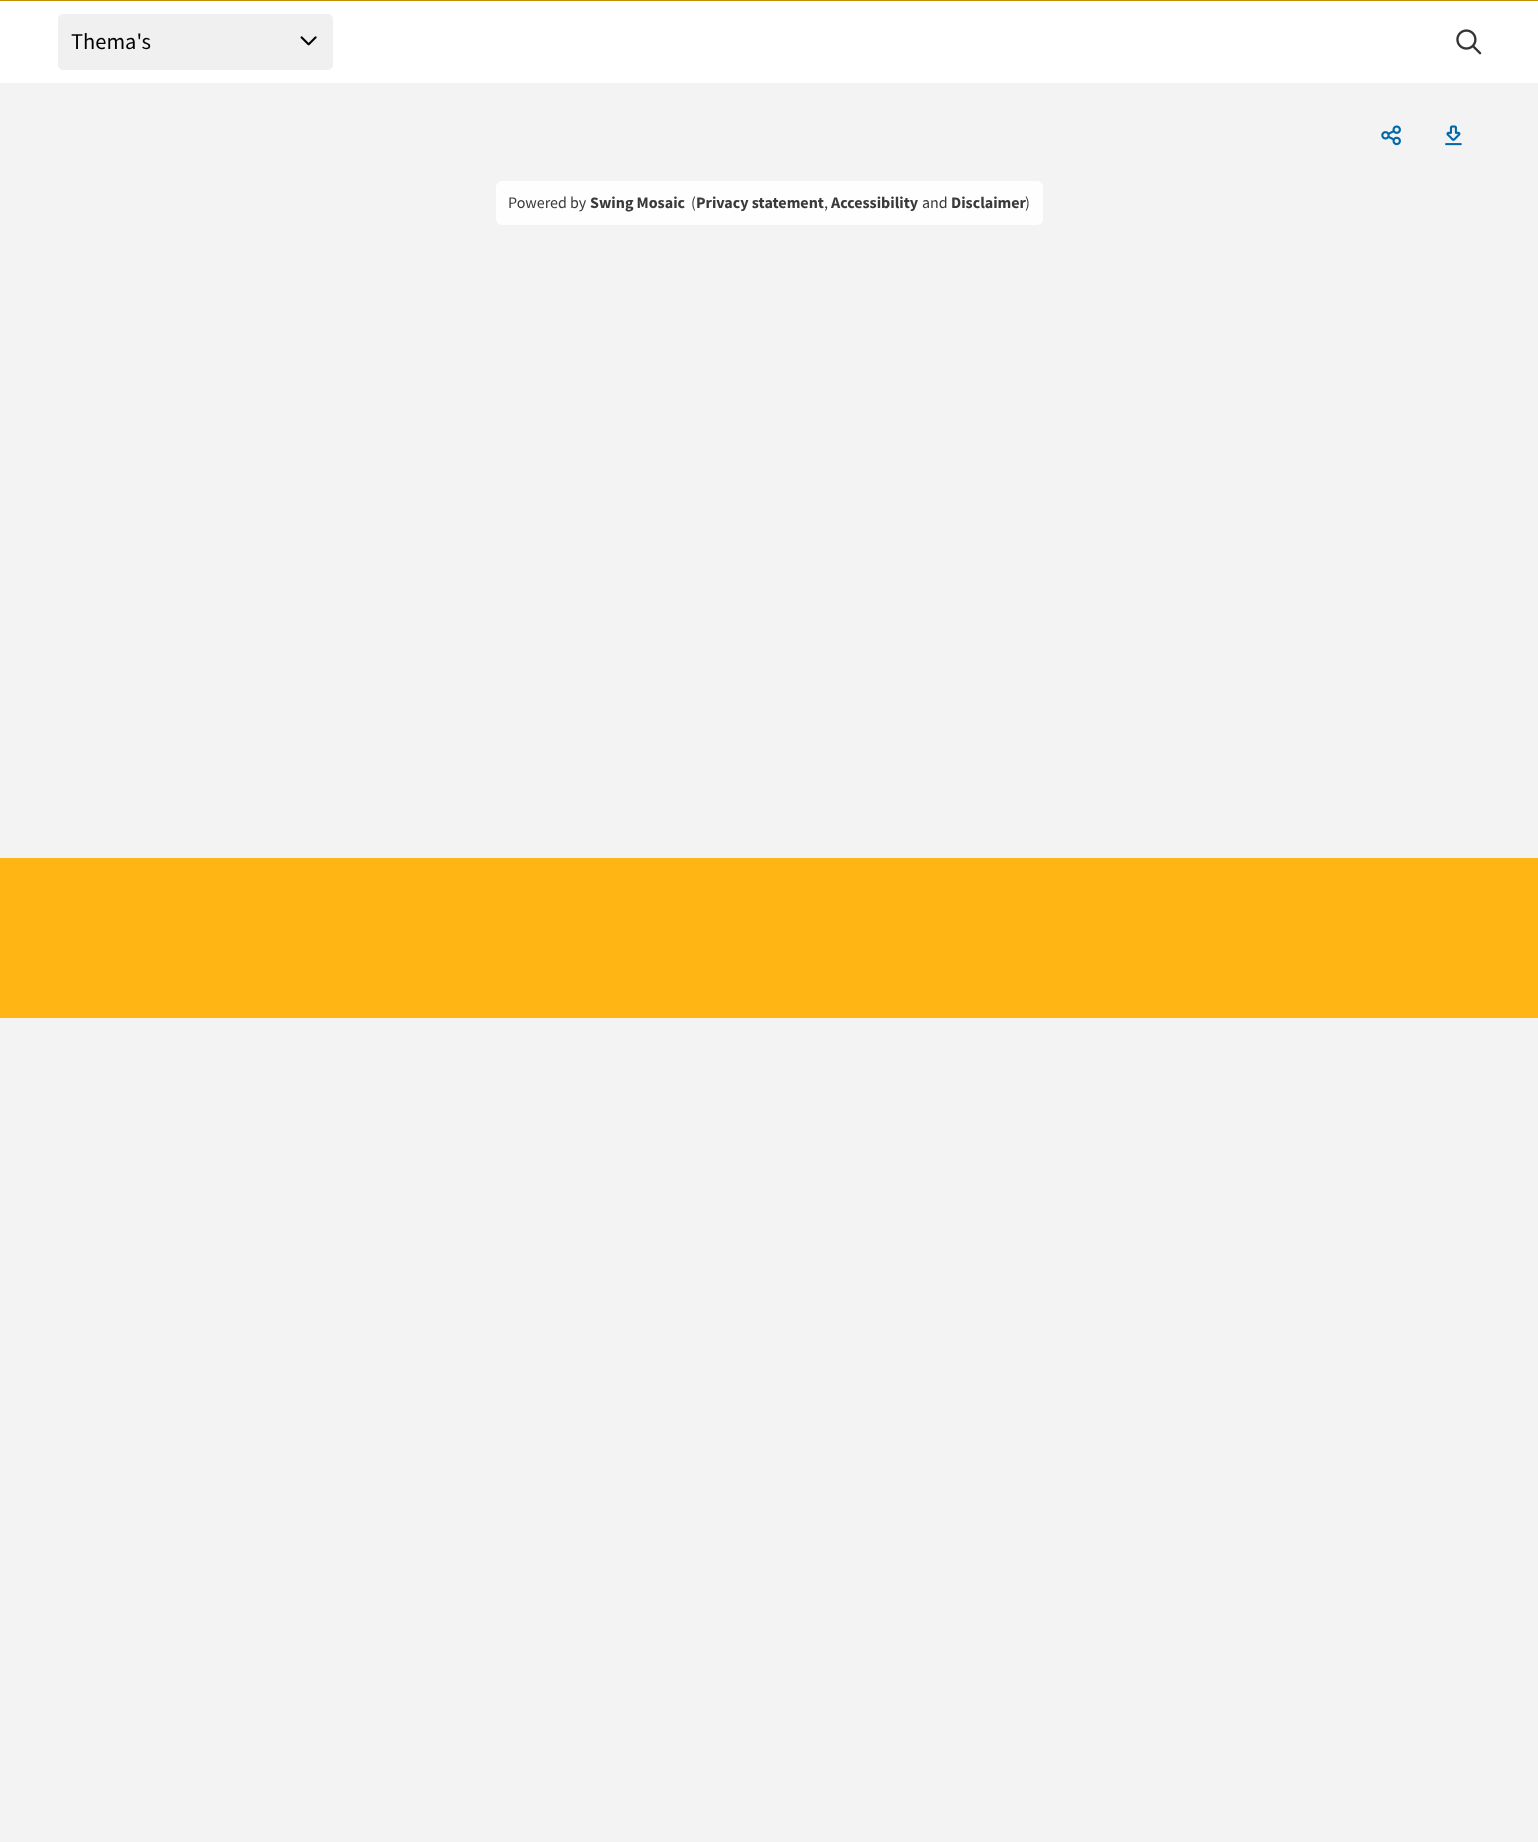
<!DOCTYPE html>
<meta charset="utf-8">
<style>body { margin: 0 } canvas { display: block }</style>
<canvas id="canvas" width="1538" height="1842"></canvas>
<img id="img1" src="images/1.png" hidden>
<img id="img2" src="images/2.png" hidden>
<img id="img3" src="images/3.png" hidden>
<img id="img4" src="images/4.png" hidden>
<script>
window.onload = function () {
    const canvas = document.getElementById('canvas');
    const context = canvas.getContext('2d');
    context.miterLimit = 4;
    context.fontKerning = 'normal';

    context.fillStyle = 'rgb(243, 243, 243)';
    context.fillRect(0, 0, 1538, 1842);
    context.fillStyle = 'rgb(255, 255, 255)';
    context.fillRect(0, 1, 1538, 82);
    context.fillStyle = 'rgb(191, 144, 0)';
    context.fillRect(0, 0, 1538, 1);
    context.fillStyle = 'rgb(240, 240, 240)';
    context.beginPath();
    context.roundRect(58.5, 14.5, 274, 55, 4.5);
    context.fill();
    context.strokeStyle = 'rgb(240, 240, 240)';
    context.stroke();
    context.drawImage(document.getElementById('img1'), 300, 36, 17, 10);
    context.drawImage(document.getElementById('img2'), 1456, 29, 26, 26);
    context.drawImage(document.getElementById('img3'), 1381, 125, 20, 21);
    context.drawImage(document.getElementById('img4'), 1445, 125, 17, 21);
    context.fillStyle = 'rgb(254, 254, 254)';
    context.beginPath();
    context.roundRect(496, 181, 547, 44, 6);
    context.fill();
    context.fillStyle = 'rgb(255, 181, 19)';
    context.fillRect(0, 858, 1538, 160);
    context.font = '22.5px Source Sans Pro';
    context.fillStyle = 'rgb(0, 0, 0)';
    context.fillText('Thema\'s', 71, 49);
    context.font = '16px Source Sans Pro';
    context.fillStyle = 'rgb(58, 58, 58)';
    context.fillText('Powered by', 508, 208);
    context.font = 'bold 16px Source Sans Pro';
    context.fillText('Swing Mosaic', 590, 208);
    context.font = '16px Source Sans Pro';
    context.fillText('(', 691, 208);
    context.font = 'bold 16px Source Sans Pro';
    context.fillText('Privacy statement', 696, 208);
    context.font = '16px Source Sans Pro';
    context.fillText(',', 824, 208);
    context.font = 'bold 16px Source Sans Pro';
    context.fillText('Accessibility', 831, 208);
    context.font = '16px Source Sans Pro';
    context.fillText('and', 922, 208);
    context.font = 'bold 16px Source Sans Pro';
    context.fillText('Disclaimer', 951, 208);
    context.font = '16px Source Sans Pro';
    context.fillText(')', 1025, 208);
};
</script>
